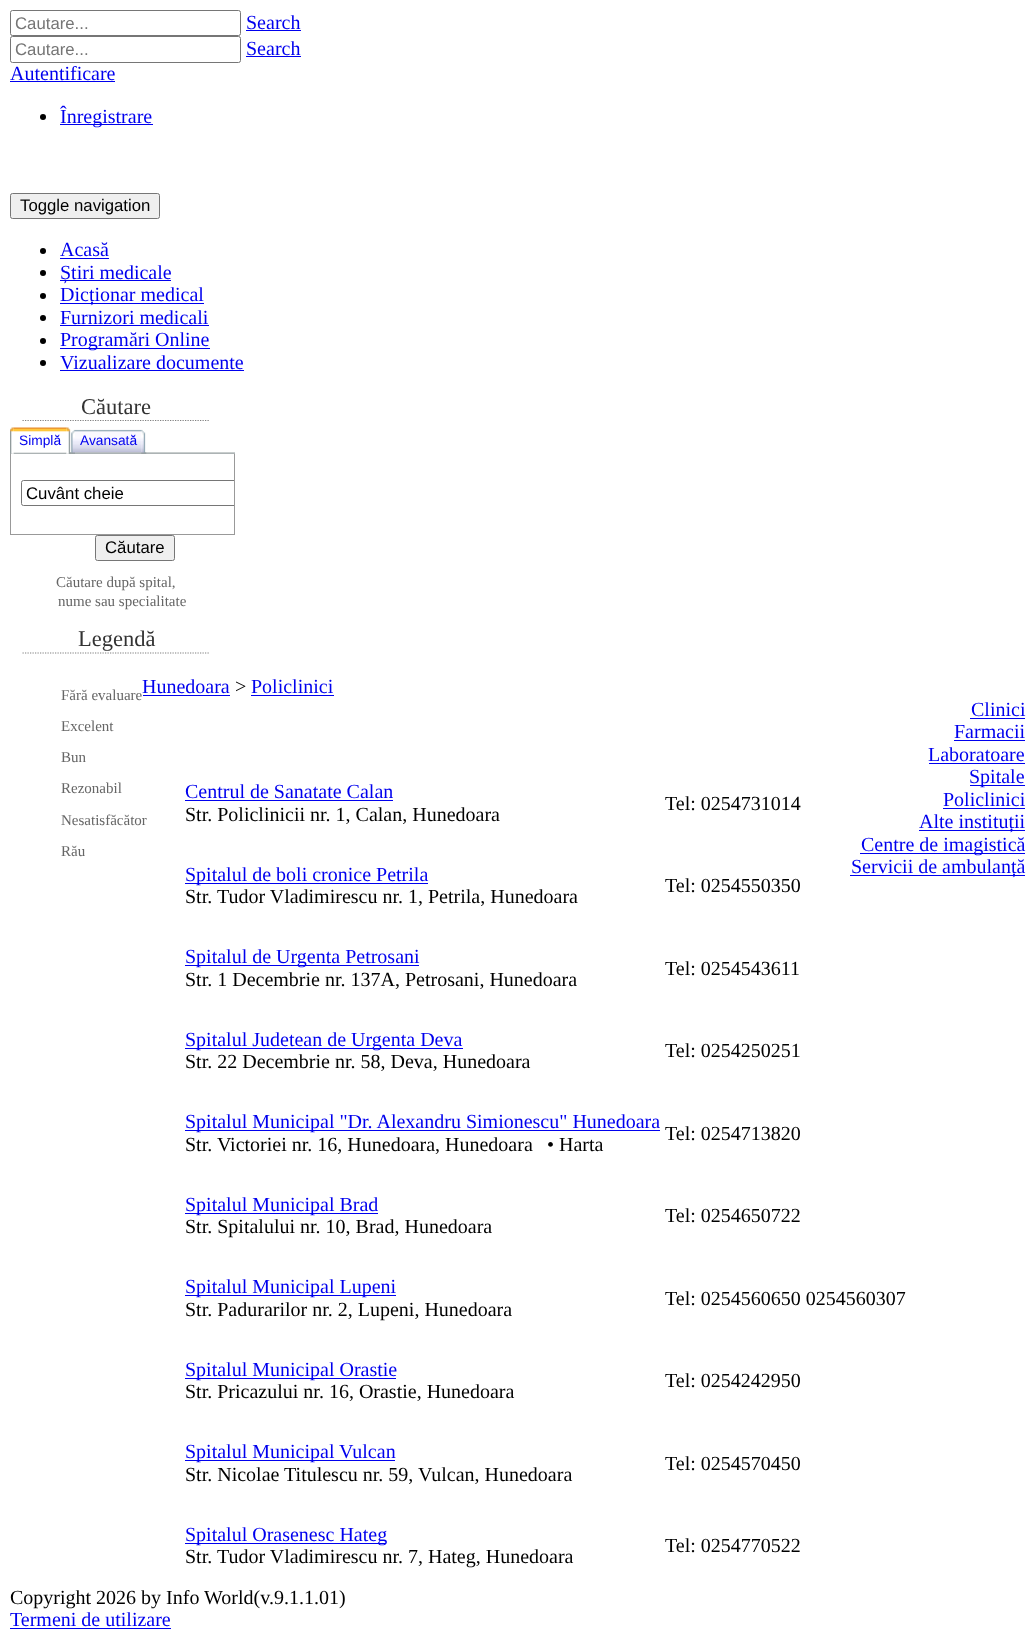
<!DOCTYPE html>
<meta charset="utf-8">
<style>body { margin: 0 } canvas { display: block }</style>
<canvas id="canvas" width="1034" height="1631"></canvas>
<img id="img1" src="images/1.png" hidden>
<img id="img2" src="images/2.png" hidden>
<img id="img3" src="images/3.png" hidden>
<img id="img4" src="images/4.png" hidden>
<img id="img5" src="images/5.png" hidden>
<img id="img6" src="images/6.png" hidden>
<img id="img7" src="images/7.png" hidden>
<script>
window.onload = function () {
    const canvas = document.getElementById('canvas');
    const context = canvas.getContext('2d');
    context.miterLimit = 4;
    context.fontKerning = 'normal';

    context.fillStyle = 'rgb(255, 255, 255)';
    context.fillRect(0, 0, 1034, 1631);
    context.beginPath();
    context.roundRect(10.5, 10.5, 230, 25, 2);
    context.strokeStyle = 'rgb(118, 118, 118)';
    context.stroke();
    context.fillStyle = 'rgb(0, 0, 238)';
    context.fillRect(246, 30, 55, 1);
    context.beginPath();
    context.roundRect(10.5, 36.5, 230, 26, 2);
    context.stroke();
    context.fillRect(246, 56, 55, 1);
    context.fillRect(10, 81, 105, 1);
    context.fillStyle = 'rgb(0, 0, 0)';
    context.beginPath();
    context.arc(43, 117, 3, 0, 2 * Math.PI);
    context.fill();
    context.fillStyle = 'rgb(0, 0, 238)';
    context.fillRect(60, 124, 93, 1);
    context.fillStyle = 'rgb(239, 239, 239)';
    context.beginPath();
    context.roundRect(10.5, 193.5, 149, 25, 2);
    context.fill();
    context.stroke();
    context.fillStyle = 'rgb(0, 0, 0)';
    context.beginPath();
    context.arc(43, 251, 3, 0, 2 * Math.PI);
    context.fill();
    context.fillStyle = 'rgb(0, 0, 238)';
    context.fillRect(60, 258, 49, 1);
    context.fillStyle = 'rgb(0, 0, 0)';
    context.beginPath();
    context.arc(43, 273, 3, 0, 2 * Math.PI);
    context.fill();
    context.fillStyle = 'rgb(0, 0, 238)';
    context.fillRect(60, 280, 111, 1);
    context.fillStyle = 'rgb(0, 0, 0)';
    context.beginPath();
    context.arc(43, 296, 3, 0, 2 * Math.PI);
    context.fill();
    context.fillStyle = 'rgb(0, 0, 238)';
    context.fillRect(60, 303, 144, 1);
    context.fillStyle = 'rgb(0, 0, 0)';
    context.beginPath();
    context.arc(43, 318, 3, 0, 2 * Math.PI);
    context.fill();
    context.fillStyle = 'rgb(0, 0, 238)';
    context.fillRect(60, 325, 149, 1);
    context.fillStyle = 'rgb(0, 0, 0)';
    context.beginPath();
    context.arc(43, 341, 3, 0, 2 * Math.PI);
    context.fill();
    context.fillStyle = 'rgb(0, 0, 238)';
    context.fillRect(60, 348, 150, 1);
    context.fillStyle = 'rgb(0, 0, 0)';
    context.beginPath();
    context.arc(43, 363, 3, 0, 2 * Math.PI);
    context.fill();
    context.fillStyle = 'rgb(0, 0, 238)';
    context.fillRect(60, 370, 184, 1);
    context.beginPath();
    context.moveTo(22.5, 420.5);
    context.lineTo(210, 420.5);
    context.strokeStyle = 'rgb(128, 128, 128)';
    context.lineWidth = 1.2;
    context.setLineDash([1.25, 1.25]);
    context.stroke();
    context.drawImage(document.getElementById('img1'), 10, 452, 225, 2);
    context.drawImage(document.getElementById('img2'), 66, 427, 6, 27);
    context.drawImage(document.getElementById('img3'), 10, 427, 4, 27);
    context.drawImage(document.getElementById('img4'), 13, 427, 54, 26);
    context.drawImage(document.getElementById('img5'), 141, 429, 6, 25);
    context.drawImage(document.getElementById('img6'), 71, 429, 4, 25);
    context.drawImage(document.getElementById('img7'), 75, 429, 67, 24);
    context.fillStyle = 'rgb(153, 153, 153)';
    context.fillRect(234, 454, 1, 81);
    context.fillRect(10, 534, 225, 1);
    context.fillRect(10, 454, 1, 81);
    context.save();
    context.beginPath();
    context.rect(11, 454, 223, 80);
    context.clip();
    context.beginPath();
    context.roundRect(21.5, 480.5, 231, 25, 2);
    context.strokeStyle = 'rgb(118, 118, 118)';
    context.lineWidth = 1;
    context.setLineDash([]);
    context.stroke();
    context.restore();
    context.fillStyle = 'rgb(239, 239, 239)';
    context.beginPath();
    context.roundRect(95.5, 535.5, 79, 25, 2);
    context.fill();
    context.strokeStyle = 'rgb(118, 118, 118)';
    context.lineWidth = 1;
    context.setLineDash([]);
    context.stroke();
    context.beginPath();
    context.moveTo(22.5, 653);
    context.lineTo(210, 653);
    context.strokeStyle = 'rgb(128, 128, 128)';
    context.lineWidth = 1.2;
    context.setLineDash([1.25, 1.25]);
    context.stroke();
    context.fillStyle = 'rgb(0, 0, 238)';
    context.fillRect(143, 695, 87, 1);
    context.fillRect(251, 695, 83, 1);
    context.fillRect(970, 718, 55, 1);
    context.fillRect(954, 740, 71, 1);
    context.fillRect(929, 763, 96, 1);
    context.fillRect(970, 785, 55, 1);
    context.fillRect(943, 808, 82, 1);
    context.fillRect(919, 830, 106, 1);
    context.fillRect(860, 853, 165, 1);
    context.fillRect(850, 875, 175, 1);
    context.fillRect(185, 800, 208, 1);
    context.fillRect(185, 883, 243, 1);
    context.fillRect(185, 965, 234, 1);
    context.fillRect(185, 1048, 278, 1);
    context.fillRect(185, 1130, 475, 1);
    context.fillRect(185, 1213, 193, 1);
    context.fillRect(185, 1295, 211, 1);
    context.fillRect(185, 1378, 211, 1);
    context.fillRect(185, 1460, 210, 1);
    context.fillRect(185, 1543, 201, 1);
    context.fillRect(10, 1628, 161, 1);
    context.font = '16.75px Liberation Sans';
    context.fillStyle = 'rgb(117, 117, 117)';
    context.fillText('Cautare...', 15, 29);
    context.font = '20px Liberation Serif';
    context.fillStyle = 'rgb(0, 0, 238)';
    context.fillText('Search', 246, 29);
    context.font = '16.75px Liberation Sans';
    context.fillStyle = 'rgb(117, 117, 117)';
    context.fillText('Cautare...', 15, 55);
    context.font = '20px Liberation Serif';
    context.fillStyle = 'rgb(0, 0, 238)';
    context.fillText('Search', 246, 55);
    context.fillText('Autentificare', 10, 80);
    context.fillText('Înregistrare', 60, 123);
    context.font = '16.75px Liberation Sans';
    context.fillStyle = 'rgb(0, 0, 0)';
    context.fillText('Toggle navigation', 20, 211);
    context.font = '20px Liberation Serif';
    context.fillStyle = 'rgb(0, 0, 238)';
    context.fillText('Acasă', 60, 256);
    context.fillText('Știri medicale', 60, 279);
    context.fillText('Dicționar medical', 60, 301);
    context.fillText('Furnizori medicali', 60, 324);
    context.fillText('Programări Online', 60, 346);
    context.fillText('Vizualizare documente', 60, 369);
    context.font = '22.5px Liberation Serif';
    context.fillStyle = 'rgb(51, 51, 51)';
    context.fillText('Căutare', 81, 414);
    context.font = '13.75px Liberation Sans';
    context.fillStyle = 'rgb(0, 0, 238)';
    context.fillText('Simplă', 19, 445);
    context.fillText('Avansată', 80, 445);
    context.font = '16.75px Liberation Sans';
    context.fillStyle = 'rgb(0, 0, 0)';
    context.fillText('Cuvânt cheie', 26, 499);
    context.fillText('Căutare', 105, 553);
    context.font = '15px Liberation Serif';
    context.fillStyle = 'rgb(102, 102, 102)';
    context.fillText('Căutare după spital,', 56, 587);
    context.fillText('nume sau specialitate', 58, 606);
    context.font = '22.5px Liberation Serif';
    context.fillStyle = 'rgb(51, 51, 51)';
    context.fillText('Legendă', 78, 646);
    context.font = '15px Liberation Serif';
    context.fillStyle = 'rgb(102, 102, 102)';
    context.fillText('Fără evaluare', 61, 700);
    context.fillText('Excelent', 61, 731);
    context.fillText('Bun', 61, 762);
    context.fillText('Rezonabil', 61, 793);
    context.fillText('Nesatisfăcător', 61, 825);
    context.fillText('Rău', 61, 856);
    context.font = '20px Liberation Serif';
    context.fillStyle = 'rgb(0, 0, 238)';
    context.fillText('Hunedoara', 142, 693);
    context.fillStyle = 'rgb(0, 0, 0)';
    context.fillText('>', 235, 693);
    context.fillStyle = 'rgb(0, 0, 238)';
    context.fillText('Policlinici', 251, 693);
    context.fillText('Clinici', 971, 716);
    context.fillText('Farmacii', 954, 738);
    context.fillText('Laboratoare', 928, 761);
    context.fillText('Spitale', 969, 783);
    context.fillText('Policlinici', 943, 806);
    context.fillText('Alte instituții', 919, 828);
    context.fillText('Centre de imagistică', 861, 851);
    context.fillText('Servicii de ambulanță', 851, 873);
    context.fillText('Centrul de Sanatate Calan', 185, 798);
    context.fillStyle = 'rgb(0, 0, 0)';
    context.fillText('Str. Policlinicii nr. 1, Calan, Hunedoara', 185, 821);
    context.fillText('Tel: 0254731014', 665, 810);
    context.fillStyle = 'rgb(0, 0, 238)';
    context.fillText('Spitalul de boli cronice Petrila', 185, 881);
    context.fillStyle = 'rgb(0, 0, 0)';
    context.fillText('Str. Tudor Vladimirescu nr. 1, Petrila, Hunedoara', 185, 903);
    context.fillText('Tel: 0254550350', 665, 892);
    context.fillStyle = 'rgb(0, 0, 238)';
    context.fillText('Spitalul de Urgenta Petrosani', 185, 963);
    context.fillStyle = 'rgb(0, 0, 0)';
    context.fillText('Str. 1 Decembrie nr. 137A, Petrosani, Hunedoara', 185, 986);
    context.fillText('Tel: 0254543611', 665, 975);
    context.fillStyle = 'rgb(0, 0, 238)';
    context.fillText('Spitalul Judetean de Urgenta Deva', 185, 1046);
    context.fillStyle = 'rgb(0, 0, 0)';
    context.fillText('Str. 22 Decembrie nr. 58, Deva, Hunedoara', 185, 1068);
    context.fillText('Tel: 0254250251', 665, 1057);
    context.fillStyle = 'rgb(0, 0, 238)';
    context.fillText('Spitalul Municipal "Dr. Alexandru Simionescu" Hunedoara', 185, 1128);
    context.fillStyle = 'rgb(0, 0, 0)';
    context.fillText('Str. Victoriei nr. 16, Hunedoara, Hunedoara', 185, 1151);
    context.fillText('• Harta', 547, 1151);
    context.fillText('Tel: 0254713820', 665, 1140);
    context.fillStyle = 'rgb(0, 0, 238)';
    context.fillText('Spitalul Municipal Brad', 185, 1211);
    context.fillStyle = 'rgb(0, 0, 0)';
    context.fillText('Str. Spitalului nr. 10, Brad, Hunedoara', 185, 1233);
    context.fillText('Tel: 0254650722', 665, 1222);
    context.fillStyle = 'rgb(0, 0, 238)';
    context.fillText('Spitalul Municipal Lupeni', 185, 1293);
    context.fillStyle = 'rgb(0, 0, 0)';
    context.fillText('Str. Padurarilor nr. 2, Lupeni, Hunedoara', 185, 1316);
    context.fillText('Tel: 0254560650 0254560307', 665, 1305);
    context.fillStyle = 'rgb(0, 0, 238)';
    context.fillText('Spitalul Municipal Orastie', 185, 1376);
    context.fillStyle = 'rgb(0, 0, 0)';
    context.fillText('Str. Pricazului nr. 16, Orastie, Hunedoara', 185, 1398);
    context.fillText('Tel: 0254242950', 665, 1387);
    context.fillStyle = 'rgb(0, 0, 238)';
    context.fillText('Spitalul Municipal Vulcan', 185, 1458);
    context.fillStyle = 'rgb(0, 0, 0)';
    context.fillText('Str. Nicolae Titulescu nr. 59, Vulcan, Hunedoara', 185, 1481);
    context.fillText('Tel: 0254570450', 665, 1470);
    context.fillStyle = 'rgb(0, 0, 238)';
    context.fillText('Spitalul Orasenesc Hateg', 185, 1541);
    context.fillStyle = 'rgb(0, 0, 0)';
    context.fillText('Str. Tudor Vladimirescu nr. 7, Hateg, Hunedoara', 185, 1563);
    context.fillText('Tel: 0254770522', 665, 1552);
    context.fillText('Copyright 2026 by Info World(v.9.1.1.01)', 10, 1604);
    context.fillStyle = 'rgb(0, 0, 238)';
    context.fillText('Termeni de utilizare', 10, 1626);
};
</script>
